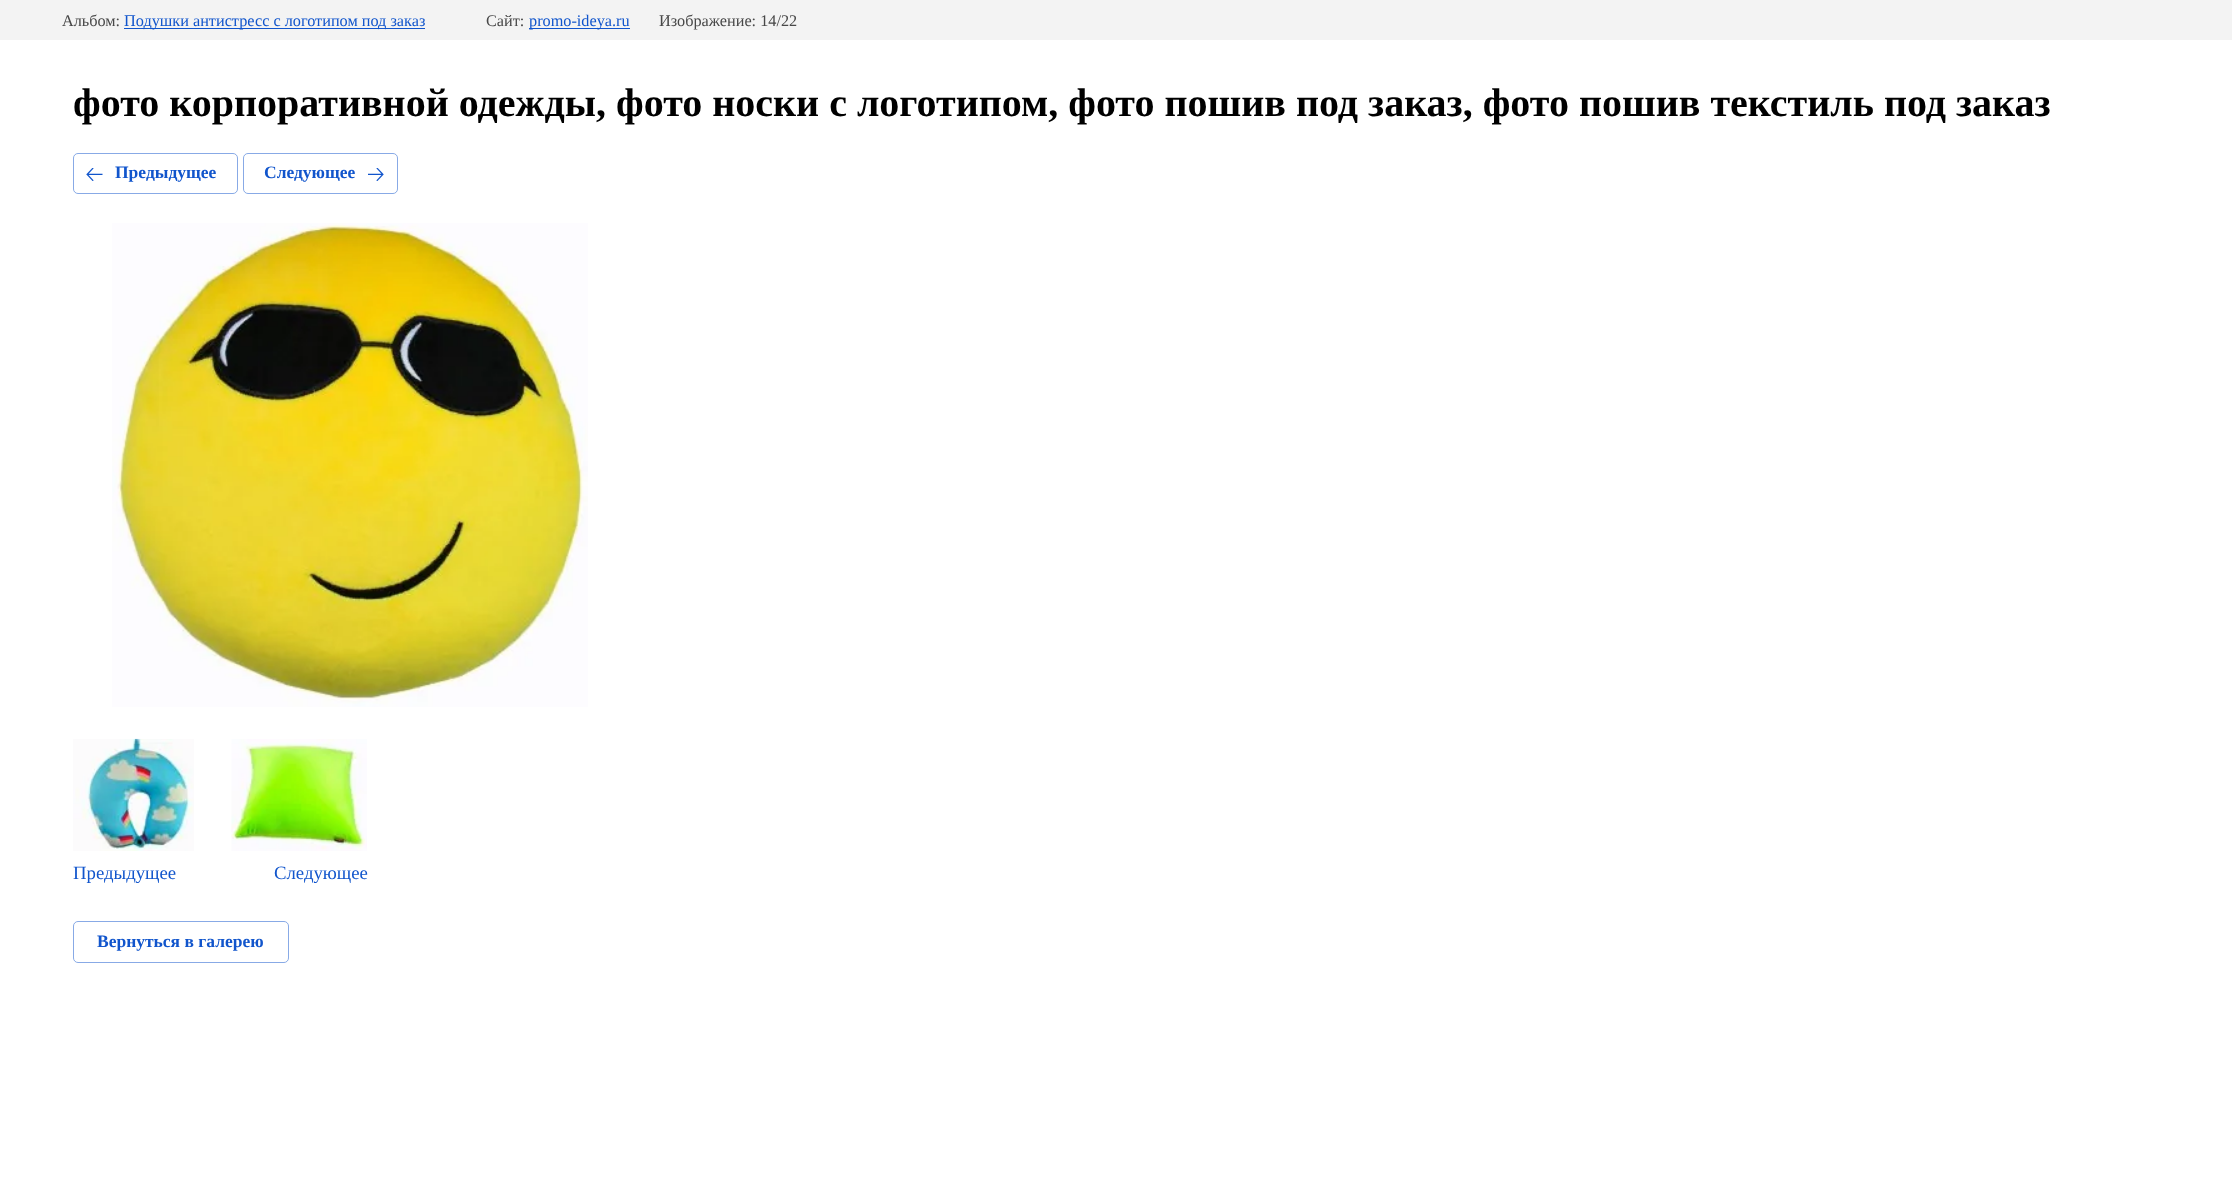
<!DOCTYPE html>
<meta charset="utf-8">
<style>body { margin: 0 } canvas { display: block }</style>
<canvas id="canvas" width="2232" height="1187"></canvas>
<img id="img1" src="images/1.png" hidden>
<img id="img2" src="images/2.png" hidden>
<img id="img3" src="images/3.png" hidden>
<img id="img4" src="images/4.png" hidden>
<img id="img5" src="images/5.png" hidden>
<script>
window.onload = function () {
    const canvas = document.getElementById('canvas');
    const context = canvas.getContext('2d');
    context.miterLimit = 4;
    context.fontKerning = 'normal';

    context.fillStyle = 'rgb(255, 255, 255)';
    context.fillRect(0, 0, 2232, 1187);
    context.fillStyle = 'rgb(243, 243, 243)';
    context.fillRect(0, 0, 2232, 40);
    context.fillStyle = 'rgb(17, 85, 204)';
    context.fillRect(124, 28, 301, 1);
    context.fillRect(529, 28, 101, 1);
    context.beginPath();
    context.roundRect(73.5, 153.5, 164, 40, 4.5);
    context.strokeStyle = 'rgb(136, 170, 230)';
    context.stroke();
    context.drawImage(document.getElementById('img1'), 86, 168, 17, 13);
    context.beginPath();
    context.roundRect(243.5, 153.5, 154, 40, 4.5);
    context.stroke();
    context.drawImage(document.getElementById('img2'), 368, 168, 16, 13);
    context.drawImage(document.getElementById('img3'), 112, 223, 476, 484);
    context.drawImage(document.getElementById('img4'), 73, 738, 121, 113);
    context.drawImage(document.getElementById('img5'), 231, 739, 136, 112);
    context.beginPath();
    context.roundRect(73.5, 921.5, 215, 41, 4.5);
    context.stroke();
    context.font = '16.25px Liberation Serif';
    context.fillStyle = 'rgb(72, 72, 72)';
    context.fillText('Альбом:', 62, 26);
    context.fillStyle = 'rgb(17, 85, 204)';
    context.fillText('Подушки антистресс с логотипом под заказ', 124, 26);
    context.fillStyle = 'rgb(72, 72, 72)';
    context.fillText('Сайт:', 486, 26);
    context.fillStyle = 'rgb(17, 85, 204)';
    context.fillText('promo-ideya.ru', 529, 26);
    context.fillStyle = 'rgb(72, 72, 72)';
    context.fillText('Изображение: 14/22', 659, 26);
    context.font = 'bold 40px Liberation Serif';
    context.fillStyle = 'rgb(0, 0, 0)';
    context.fillText('фото корпоративной одежды, фото носки с логотипом, фото пошив под заказ, фото пошив текстиль под заказ', 73, 116);
    context.font = 'bold 17.5px Liberation Serif';
    context.fillStyle = 'rgb(17, 85, 204)';
    context.fillText('Предыдущее', 115, 178);
    context.fillText('Следующее', 264, 178);
    context.font = '18.75px Liberation Serif';
    context.fillText('Предыдущее', 73, 879);
    context.fillText('Следующее', 274, 879);
    context.font = 'bold 17.5px Liberation Serif';
    context.fillText('Вернуться в галерею', 97, 947);
};
</script>
